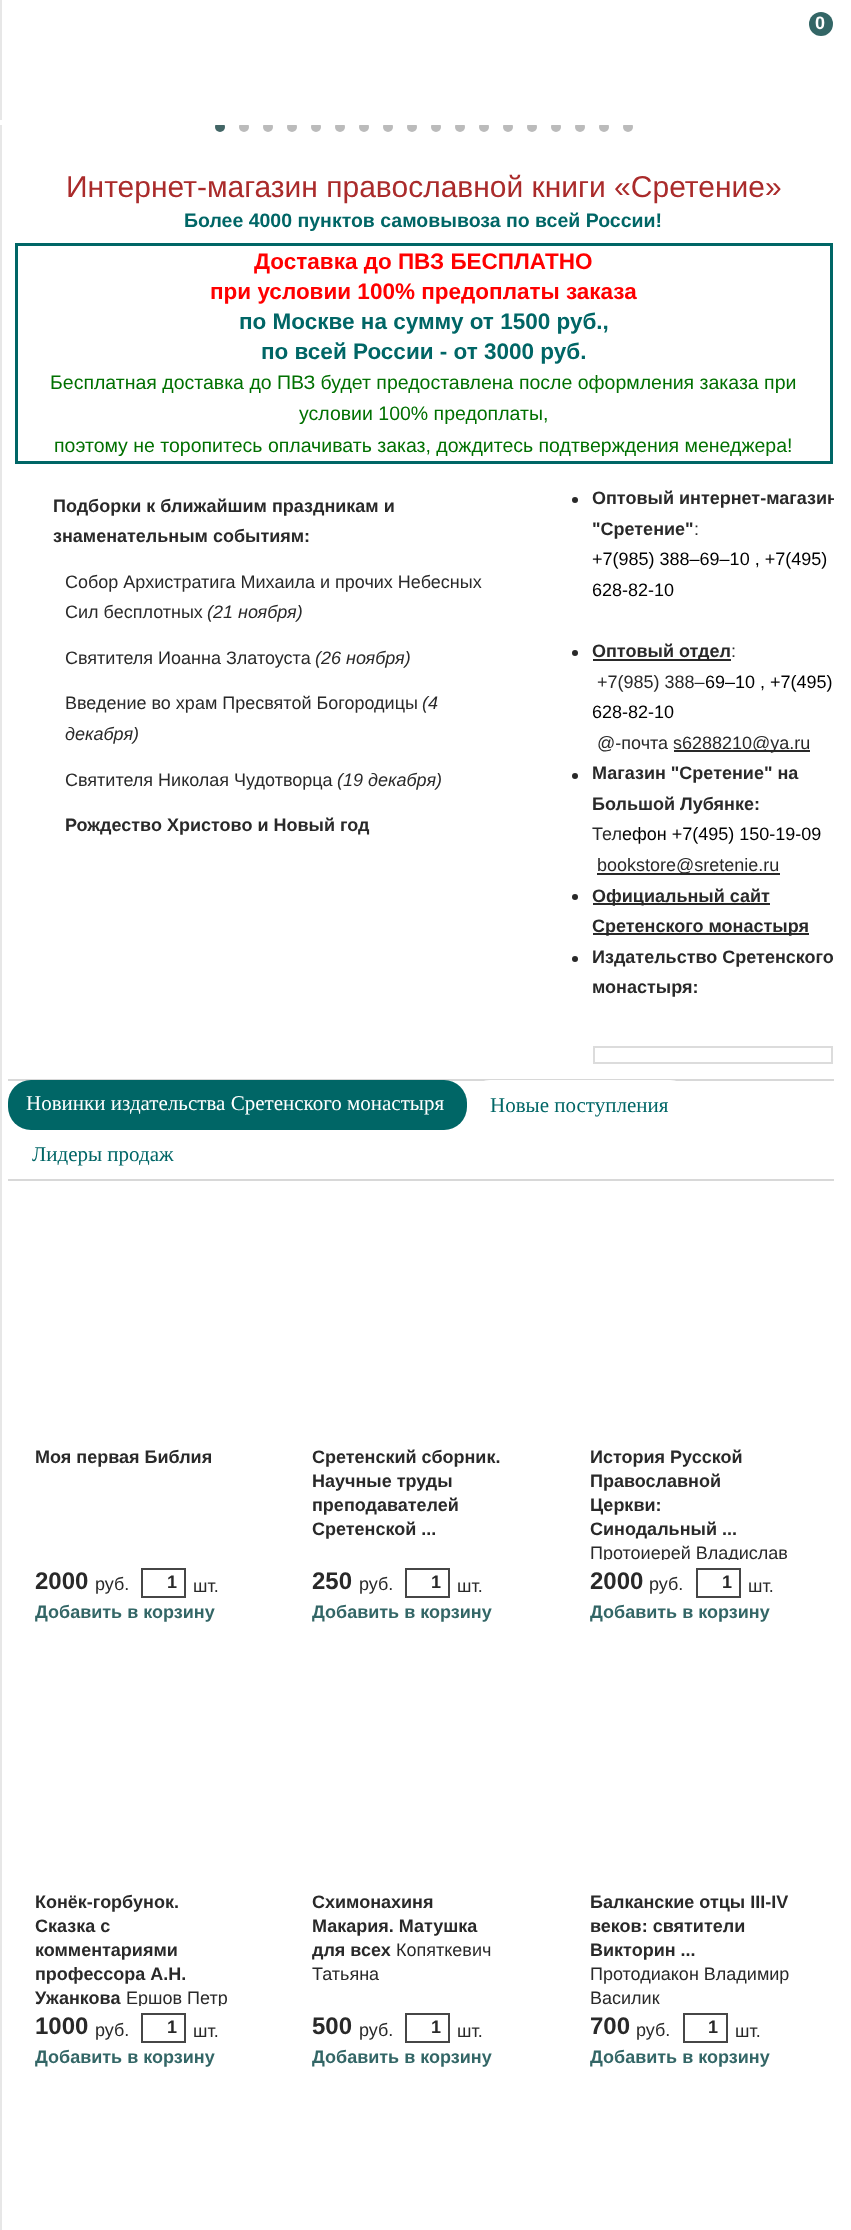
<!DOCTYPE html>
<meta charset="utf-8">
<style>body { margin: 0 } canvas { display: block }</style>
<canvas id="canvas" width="851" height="2230"></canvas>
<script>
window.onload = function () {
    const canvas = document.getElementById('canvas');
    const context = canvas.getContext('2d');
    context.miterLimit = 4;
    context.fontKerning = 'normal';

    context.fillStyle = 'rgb(255, 255, 255)';
    context.fillRect(0, 0, 851, 2230);
    context.fillStyle = 'rgb(231, 231, 231)';
    context.fillRect(0, 0, 2, 120);
    context.fillStyle = 'rgb(51, 102, 102)';
    context.beginPath();
    context.arc(821, 24, 12, 0, 2 * Math.PI);
    context.fill();
    context.fillStyle = 'rgb(231, 231, 231)';
    context.fillRect(0, 125, 2, 2105);
    context.save();
    context.beginPath();
    context.rect(2, 125, 832, 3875);
    context.clip();
    context.fillStyle = 'rgb(67, 102, 102)';
    context.beginPath();
    context.arc(220, 127, 5, 0, 2 * Math.PI);
    context.fill();
    context.fillStyle = 'rgb(187, 187, 187)';
    context.beginPath();
    context.arc(244, 127, 5, 0, 2 * Math.PI);
    context.fill();
    context.beginPath();
    context.arc(268, 127, 5, 0, 2 * Math.PI);
    context.fill();
    context.beginPath();
    context.arc(292, 127, 5, 0, 2 * Math.PI);
    context.fill();
    context.beginPath();
    context.arc(316, 127, 5, 0, 2 * Math.PI);
    context.fill();
    context.beginPath();
    context.arc(340, 127, 5, 0, 2 * Math.PI);
    context.fill();
    context.beginPath();
    context.arc(364, 127, 5, 0, 2 * Math.PI);
    context.fill();
    context.beginPath();
    context.arc(388, 127, 5, 0, 2 * Math.PI);
    context.fill();
    context.beginPath();
    context.arc(412, 127, 5, 0, 2 * Math.PI);
    context.fill();
    context.beginPath();
    context.arc(436, 127, 5, 0, 2 * Math.PI);
    context.fill();
    context.beginPath();
    context.arc(460, 127, 5, 0, 2 * Math.PI);
    context.fill();
    context.beginPath();
    context.arc(484, 127, 5, 0, 2 * Math.PI);
    context.fill();
    context.beginPath();
    context.arc(508, 127, 5, 0, 2 * Math.PI);
    context.fill();
    context.beginPath();
    context.arc(532, 127, 5, 0, 2 * Math.PI);
    context.fill();
    context.beginPath();
    context.arc(556, 127, 5, 0, 2 * Math.PI);
    context.fill();
    context.beginPath();
    context.arc(580, 127, 5, 0, 2 * Math.PI);
    context.fill();
    context.beginPath();
    context.arc(604, 127, 5, 0, 2 * Math.PI);
    context.fill();
    context.beginPath();
    context.arc(628, 127, 5, 0, 2 * Math.PI);
    context.fill();
    context.restore();
    context.strokeStyle = 'rgb(0, 102, 102)';
    context.lineWidth = 3;
    context.strokeRect(16.5, 244.5, 815, 218);
    context.fillStyle = 'rgb(41, 41, 41)';
    context.beginPath();
    context.arc(575, 500, 3, 0, 2 * Math.PI);
    context.fill();
    context.beginPath();
    context.arc(575, 653, 3, 0, 2 * Math.PI);
    context.fill();
    context.fillRect(593, 659, 138, 2);
    context.fillRect(674, 750, 136, 2);
    context.beginPath();
    context.arc(575, 776, 3, 0, 2 * Math.PI);
    context.fill();
    context.fillRect(597, 873, 183, 2);
    context.beginPath();
    context.arc(575, 897, 3, 0, 2 * Math.PI);
    context.fill();
    context.fillRect(593, 903, 177, 2);
    context.fillRect(593, 933, 216, 2);
    context.beginPath();
    context.arc(575, 959, 3, 0, 2 * Math.PI);
    context.fill();
    context.strokeStyle = 'rgb(220, 220, 220)';
    context.lineWidth = 2;
    context.strokeRect(594, 1047, 238, 16);
    context.fillStyle = 'rgb(216, 216, 216)';
    context.fillRect(8, 1079, 826, 2);
    context.fillRect(8, 1179, 826, 2);
    context.fillStyle = 'rgb(0, 102, 102)';
    context.beginPath();
    context.roundRect(8, 1080, 459, 50, 23);
    context.fill();
    context.fillStyle = 'rgb(255, 255, 255)';
    context.beginPath();
    context.roundRect(467, 1080, 226, 50, 23);
    context.fill();
    context.strokeStyle = 'rgb(70, 70, 70)';
    context.strokeRect(142, 1569, 43, 28);
    context.strokeRect(406, 1569, 43, 28);
    context.strokeRect(697, 1569, 43, 28);
    context.strokeRect(142, 2014, 43, 28);
    context.strokeRect(406, 2014, 43, 28);
    context.strokeRect(684, 2014, 43, 28);
    context.font = 'bold 18px Liberation Sans';
    context.fillText('0', 815, 29);
    context.font = '30px Liberation Sans';
    context.fillStyle = 'rgb(170, 43, 43)';
    context.fillText('Интернет-магазин православной книги «Сретение»', 66, 197);
    context.font = 'bold 19.5px Liberation Sans';
    context.fillStyle = 'rgb(0, 102, 102)';
    context.fillText('Более 4000 пунктов самовывоза по всей России!', 184, 227);
    context.font = 'bold 22.5px Liberation Sans';
    context.fillStyle = 'rgb(255, 0, 0)';
    context.fillText('Доставка до ПВЗ БЕСПЛАТНО', 254, 269);
    context.fillText('при условии 100% предоплаты заказа', 210, 299);
    context.fillStyle = 'rgb(0, 102, 102)';
    context.fillText('по Москве на сумму от 1500 руб.,', 239, 329);
    context.fillText('по всей России - от 3000 руб.', 261, 359);
    context.font = '19.5px Liberation Sans';
    context.fillStyle = 'rgb(0, 112, 0)';
    context.fillText('Бесплатная доставка до ПВЗ будет предоставлена после оформления заказа при', 50, 389);
    context.fillText('условии 100% предоплаты,', 299, 420);
    context.fillText('поэтому не торопитесь оплачивать заказ, дождитесь подтверждения менеджера!', 54, 452);
    context.font = 'bold 18px Liberation Sans';
    context.fillStyle = 'rgb(41, 41, 41)';
    context.fillText('Подборки к ближайшим праздникам и', 53, 512);
    context.fillText('знаменательным событиям:', 53, 542);
    context.font = '18px Liberation Sans';
    context.fillText('Собор Архистратига Михаила и прочих Небесных', 65, 588);
    context.fillText('Сил бесплотных', 65, 618);
    context.font = 'italic 18px Liberation Sans';
    context.fillText('(21 ноября)', 207, 618);
    context.font = '18px Liberation Sans';
    context.fillText('Святителя Иоанна Златоуста', 65, 664);
    context.font = 'italic 18px Liberation Sans';
    context.fillText('(26 ноября)', 315, 664);
    context.font = '18px Liberation Sans';
    context.fillText('Введение во храм Пресвятой Богородицы', 65, 709);
    context.font = 'italic 18px Liberation Sans';
    context.fillText('(4', 422, 709);
    context.fillText('декабря)', 65, 740);
    context.font = '18px Liberation Sans';
    context.fillText('Святителя Николая Чудотворца', 65, 786);
    context.font = 'italic 18px Liberation Sans';
    context.fillText('(19 декабря)', 337, 786);
    context.font = 'bold 18px Liberation Sans';
    context.fillText('Рождество Христово и Новый год', 65, 831);
    context.save();
    context.beginPath();
    context.rect(8, 147, 826, 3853);
    context.clip();
    context.fillText('Оптовый интернет-магазин', 592, 504);
    context.restore();
    context.fillText('"Сретение"', 592, 535);
    context.font = '18px Liberation Sans';
    context.fillText(':', 694, 535);
    context.fillStyle = 'rgb(0, 0, 0)';
    context.fillText('+7(985) 388–69–10 , +7(495)', 592, 565);
    context.fillText('628-82-10', 592, 596);
    context.font = 'bold 18px Liberation Sans';
    context.fillStyle = 'rgb(41, 41, 41)';
    context.fillText('Оптовый отдел', 592, 657);
    context.font = '18px Liberation Sans';
    context.fillText(':', 731, 657);
    context.fillText('+7(985) 388–', 597, 688);
    context.fillStyle = 'rgb(0, 0, 0)';
    context.fillText('69–10 , +7(495)', 705, 688);
    context.fillText('628-82-10', 592, 718);
    context.fillStyle = 'rgb(41, 41, 41)';
    context.fillText('@-почта', 597, 749);
    context.fillText('s6288210@ya.ru', 673, 749);
    context.font = 'bold 18px Liberation Sans';
    context.fillText('Магазин "Сретение" на', 592, 779);
    context.fillText('Большой Лубянке:', 592, 810);
    context.font = '18px Liberation Sans';
    context.fillText('Тел', 592, 840);
    context.fillStyle = 'rgb(0, 0, 0)';
    context.fillText('ефон +7(495) 150-19-09', 622, 840);
    context.fillStyle = 'rgb(41, 41, 41)';
    context.fillText('bookstore@sretenie.ru', 597, 871);
    context.font = 'bold 18px Liberation Sans';
    context.fillText('Официальный сайт', 592, 902);
    context.fillText('Сретенского монастыря', 592, 932);
    context.fillText('Издательство Сретенского', 592, 963);
    context.fillText('монастыря:', 592, 993);
    context.font = '21px Liberation Serif';
    context.fillStyle = 'rgb(255, 255, 255)';
    context.fillText('Новинки издательства Сретенского монастыря', 26, 1110);
    context.fillStyle = 'rgb(0, 102, 102)';
    context.fillText('Новые поступления', 490, 1112);
    context.fillText('Лидеры продаж', 32, 1161);
    context.font = 'bold 18px Liberation Sans';
    context.fillStyle = 'rgb(41, 41, 41)';
    context.fillText('Моя первая Библия', 35, 1463);
    context.font = 'bold 24px Liberation Sans';
    context.fillText('2000', 35, 1589);
    context.font = '18px Liberation Sans';
    context.fillText('руб.', 95, 1590);
    context.font = 'bold 18px Liberation Sans';
    context.fillText('1', 167, 1588);
    context.font = '18px Liberation Sans';
    context.fillText('шт.', 193, 1592);
    context.font = 'bold 18px Liberation Sans';
    context.fillStyle = 'rgb(51, 102, 102)';
    context.fillText('Добавить в корзину', 35, 1618);
    context.fillStyle = 'rgb(41, 41, 41)';
    context.fillText('Сретенский сборник.', 312, 1463);
    context.fillText('Научные труды', 312, 1487);
    context.fillText('преподавателей', 312, 1511);
    context.fillText('Сретенской ...', 312, 1535);
    context.font = 'bold 24px Liberation Sans';
    context.fillText('250', 312, 1589);
    context.font = '18px Liberation Sans';
    context.fillText('руб.', 359, 1590);
    context.font = 'bold 18px Liberation Sans';
    context.fillText('1', 431, 1588);
    context.font = '18px Liberation Sans';
    context.fillText('шт.', 457, 1592);
    context.font = 'bold 18px Liberation Sans';
    context.fillStyle = 'rgb(51, 102, 102)';
    context.fillText('Добавить в корзину', 312, 1618);
    context.fillStyle = 'rgb(41, 41, 41)';
    context.fillText('История Русской', 590, 1463);
    context.fillText('Православной', 590, 1487);
    context.fillText('Церкви:', 590, 1511);
    context.fillText('Синодальный ...', 590, 1535);
    context.font = '18px Liberation Sans';
    context.fillText('Протоиерей Владислав', 590, 1559);
    context.fillStyle = 'rgb(255, 255, 255)';
    context.fillRect(603, 1560, 136, 3);
    context.font = 'bold 24px Liberation Sans';
    context.fillStyle = 'rgb(41, 41, 41)';
    context.fillText('2000', 590, 1589);
    context.font = '18px Liberation Sans';
    context.fillText('руб.', 649, 1590);
    context.font = 'bold 18px Liberation Sans';
    context.fillText('1', 722, 1588);
    context.font = '18px Liberation Sans';
    context.fillText('шт.', 748, 1592);
    context.font = 'bold 18px Liberation Sans';
    context.fillStyle = 'rgb(51, 102, 102)';
    context.fillText('Добавить в корзину', 590, 1618);
    context.fillStyle = 'rgb(41, 41, 41)';
    context.fillText('Конёк-горбунок.', 35, 1908);
    context.fillText('Сказка с', 35, 1932);
    context.fillText('комментариями', 35, 1956);
    context.fillText('профессора А.Н.', 35, 1980);
    context.fillText('Ужанкова', 35, 2004);
    context.font = '18px Liberation Sans';
    context.fillText('Ершов Петр', 126, 2004);
    context.fillStyle = 'rgb(255, 255, 255)';
    context.fillRect(138, 2006, 83, 2);
    context.font = 'bold 24px Liberation Sans';
    context.fillStyle = 'rgb(41, 41, 41)';
    context.fillText('1000', 35, 2034);
    context.font = '18px Liberation Sans';
    context.fillText('руб.', 95, 2036);
    context.font = 'bold 18px Liberation Sans';
    context.fillText('1', 167, 2033);
    context.font = '18px Liberation Sans';
    context.fillText('шт.', 193, 2037);
    context.font = 'bold 18px Liberation Sans';
    context.fillStyle = 'rgb(51, 102, 102)';
    context.fillText('Добавить в корзину', 35, 2063);
    context.fillStyle = 'rgb(41, 41, 41)';
    context.fillText('Схимонахиня', 312, 1908);
    context.fillText('Макария. Матушка', 312, 1932);
    context.fillText('для всех', 312, 1956);
    context.font = '18px Liberation Sans';
    context.fillText('Копяткевич', 396, 1956);
    context.fillText('Татьяна', 312, 1980);
    context.font = 'bold 24px Liberation Sans';
    context.fillText('500', 312, 2034);
    context.font = '18px Liberation Sans';
    context.fillText('руб.', 359, 2036);
    context.font = 'bold 18px Liberation Sans';
    context.fillText('1', 431, 2033);
    context.font = '18px Liberation Sans';
    context.fillText('шт.', 457, 2037);
    context.font = 'bold 18px Liberation Sans';
    context.fillStyle = 'rgb(51, 102, 102)';
    context.fillText('Добавить в корзину', 312, 2063);
    context.fillStyle = 'rgb(41, 41, 41)';
    context.fillText('Балканские отцы III-IV', 590, 1908);
    context.fillText('веков: святители', 590, 1932);
    context.fillText('Викторин ...', 590, 1956);
    context.font = '18px Liberation Sans';
    context.fillText('Протодиакон Владимир', 590, 1980);
    context.fillText('Василик', 590, 2004);
    context.font = 'bold 24px Liberation Sans';
    context.fillText('700', 590, 2034);
    context.font = '18px Liberation Sans';
    context.fillText('руб.', 636, 2036);
    context.font = 'bold 18px Liberation Sans';
    context.fillText('1', 708, 2033);
    context.font = '18px Liberation Sans';
    context.fillText('шт.', 735, 2037);
    context.font = 'bold 18px Liberation Sans';
    context.fillStyle = 'rgb(51, 102, 102)';
    context.fillText('Добавить в корзину', 590, 2063);
};
</script>
